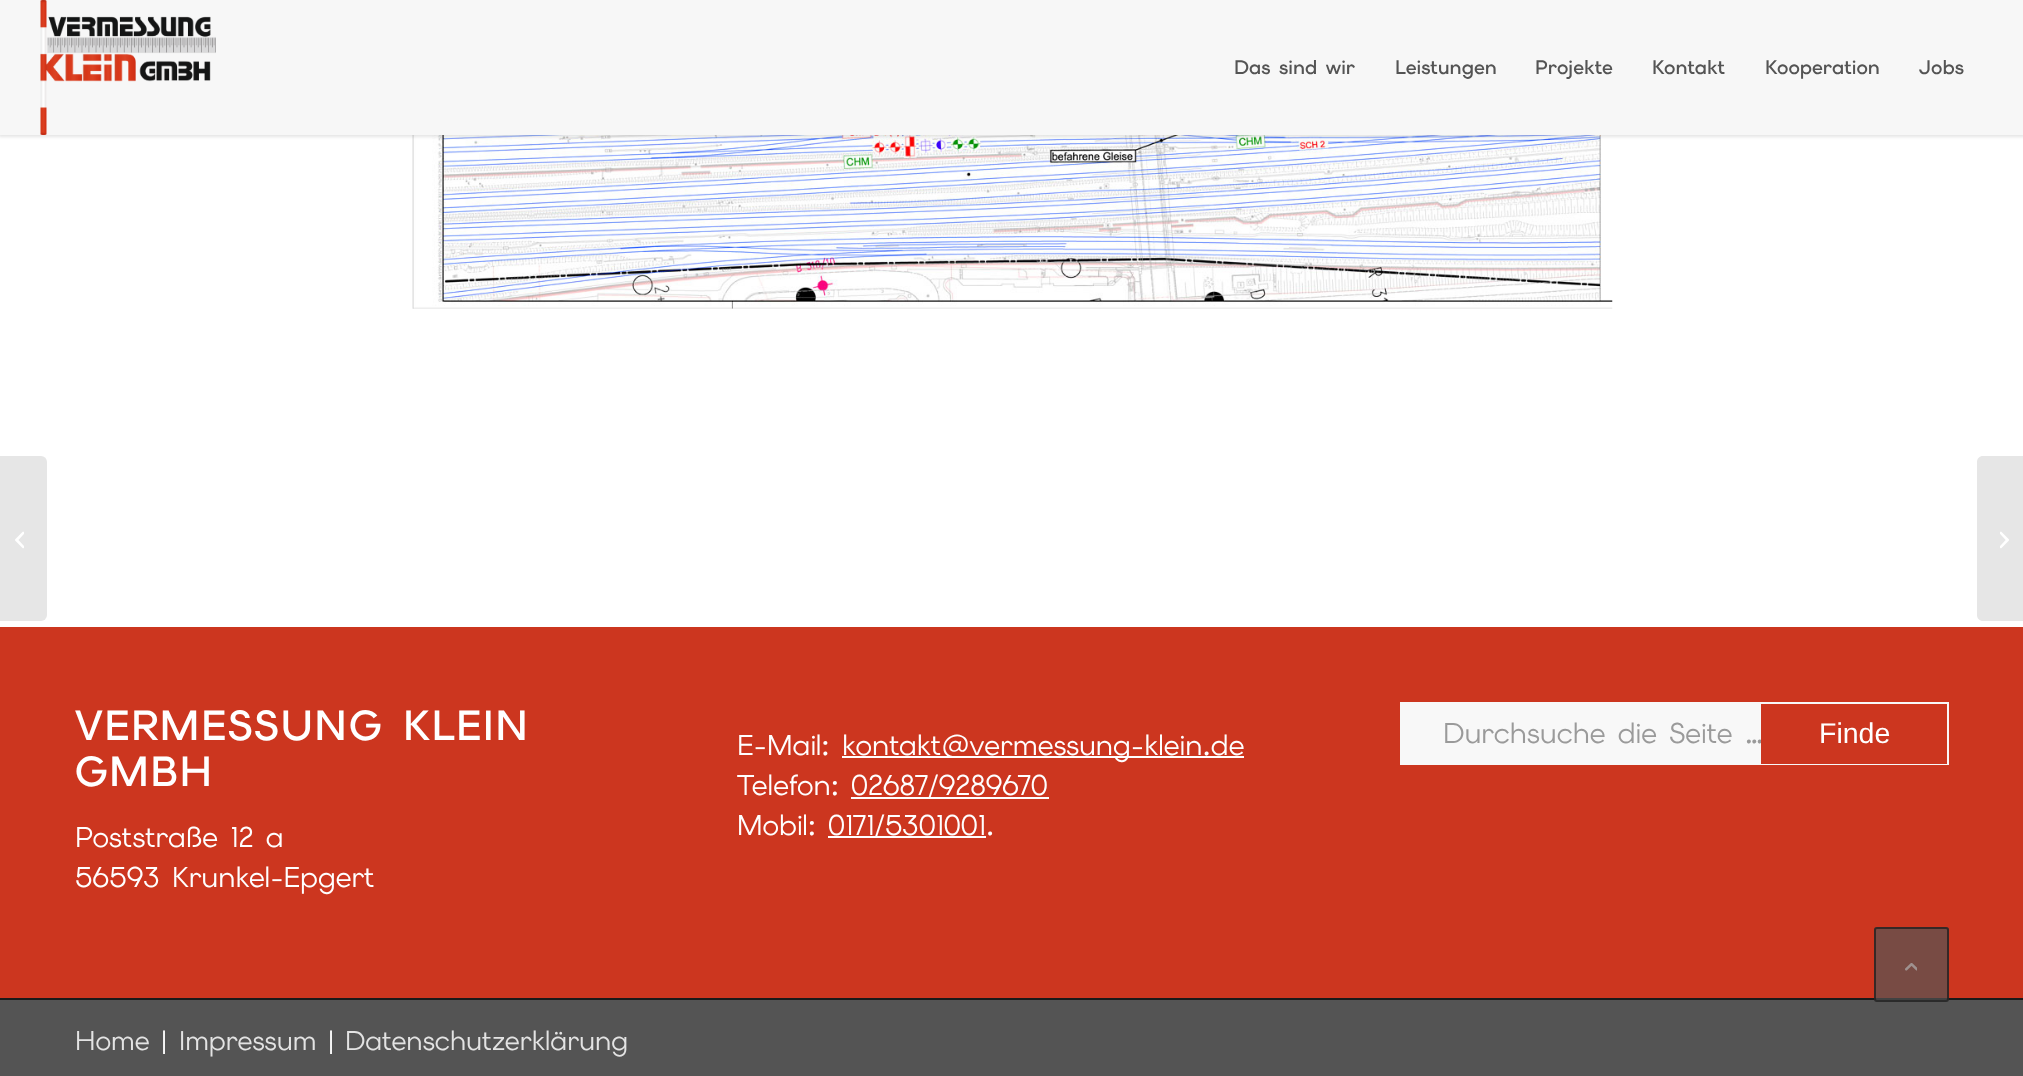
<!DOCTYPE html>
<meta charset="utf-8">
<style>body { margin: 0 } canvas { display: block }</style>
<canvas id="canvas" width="2023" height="1076"></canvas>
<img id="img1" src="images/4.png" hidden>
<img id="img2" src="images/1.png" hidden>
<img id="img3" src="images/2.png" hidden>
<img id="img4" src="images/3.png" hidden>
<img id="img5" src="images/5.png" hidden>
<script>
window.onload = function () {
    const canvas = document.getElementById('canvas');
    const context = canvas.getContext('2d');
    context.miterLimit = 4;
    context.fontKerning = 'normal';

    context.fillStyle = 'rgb(204, 54, 31)';
    context.fillRect(0, 0, 2023, 1076);
    context.fillStyle = 'rgb(255, 255, 255)';
    context.fillRect(0, 135, 2023, 492);
    context.drawImage(document.getElementById('img1'), 412, 135, 1201, 174);
    context.fillStyle = 'rgba(0, 0, 0, 0.1)';
    context.filter = 'blur(1.5px)';
    context.beginPath();
    context.rect(-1, -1, 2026, 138);
    context.fill();
    context.filter = 'none';
    context.fillStyle = 'rgb(247, 247, 247)';
    context.fillRect(0, 0, 2023, 135);
    context.drawImage(document.getElementById('img2'), 40, 0, 176, 135);
    context.fillStyle = 'rgb(230, 230, 230)';
    context.beginPath();
    context.roundRect(0, 456, 47, 165, [0, 6, 6, 0]);
    context.fill();
    context.drawImage(document.getElementById('img3'), 15, 531, 9, 18);
    context.beginPath();
    context.moveTo(1983, 456);
    context.lineTo(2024, 456);
    context.lineTo(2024, 621);
    context.lineTo(1983, 621);
    context.bezierCurveTo(1979.5, 621, 1977, 618.5, 1977, 615);
    context.lineTo(1977, 462);
    context.bezierCurveTo(1977, 458.5, 1979.5, 456, 1983, 456);
    context.closePath();
    context.fill();
    context.drawImage(document.getElementById('img4'), 2000, 531, 9, 18);
    context.fillStyle = 'rgb(255, 255, 255)';
    context.fillRect(842, 756, 402, 2);
    context.fillRect(851, 797, 198, 2);
    context.fillRect(828, 836, 158, 2);
    context.strokeStyle = 'rgb(248, 248, 248)';
    context.lineWidth = 2;
    context.strokeRect(1401, 703, 547, 61);
    context.fillStyle = 'rgb(248, 248, 248)';
    context.fillRect(1402, 704, 359, 59);
    context.fillStyle = 'rgb(84, 84, 84)';
    context.fillRect(0, 1000, 2023, 76);
    context.fillStyle = 'rgb(26, 26, 26)';
    context.fillRect(0, 998, 2023, 2);
    context.fillStyle = 'rgba(84, 84, 84, 0.7)';
    context.beginPath();
    context.roundRect(1874, 927, 75, 75, 3);
    context.fill();
    context.beginPath();
    context.roundRect(1875, 928, 73, 73, 2);
    context.strokeStyle = 'rgba(26, 26, 26, 0.7)';
    context.stroke();
    context.drawImage(document.getElementById('img5'), 1905, 963, 12, 8);
    context.font = '600 19.5px Elms Sans';
    context.fillStyle = 'rgb(84, 84, 84)';
    context.fillText('Das sind wir', 1234, 74);
    context.fillText('Leistungen', 1395, 74);
    context.fillText('Projekte', 1535, 74);
    context.fillText('Kontakt', 1652, 74);
    context.fillText('Kooperation', 1765, 74);
    context.fillText('Jobs', 1919, 74);
    context.letterSpacing = '1.5px';
    context.font = '600 42px Elms Sans';
    context.fillStyle = 'rgb(255, 255, 255)';
    context.fillText('VERMESSUNG KLEIN', 75, 740);
    context.fillText('GMBH', 75, 786);
    context.letterSpacing = '0px';
    context.font = '28.5px Elms Sans';
    context.fillText('Poststraße 12 a', 75, 847);
    context.fillText('56593 Krunkel-Epgert', 75, 887);
    context.fillText('E-Mail:', 737, 755);
    context.fillText('kontakt@vermessung-klein.de', 842, 755);
    context.fillText('Telefon:', 737, 795);
    context.fillText('02687/9289670', 851, 795);
    context.fillText('Mobil:', 737, 835);
    context.fillText('0171/5301001.', 828, 835);
    context.fillStyle = 'rgb(154, 154, 154)';
    context.fillText('Durchsuche die Seite …', 1443, 743);
    context.fillStyle = 'rgb(204, 54, 31)';
    context.fillRect(1761, 740, 186, 24);
    context.font = '28.5px Liberation Sans';
    context.fillStyle = 'rgb(255, 255, 255)';
    context.fillText('Finde', 1819, 743);
    context.font = '27px Elms Sans';
    context.fillStyle = 'rgb(227, 227, 227)';
    context.fillText('Home', 75, 1050);
    context.fillStyle = 'rgb(255, 255, 255)';
    context.fillText('|', 161, 1050);
    context.fillStyle = 'rgb(227, 227, 227)';
    context.fillText('Impressum', 179, 1050);
    context.fillStyle = 'rgb(255, 255, 255)';
    context.fillText('|', 328, 1050);
    context.fillStyle = 'rgb(227, 227, 227)';
    context.fillText('Datenschutzerklärung', 345, 1050);
};
</script>
